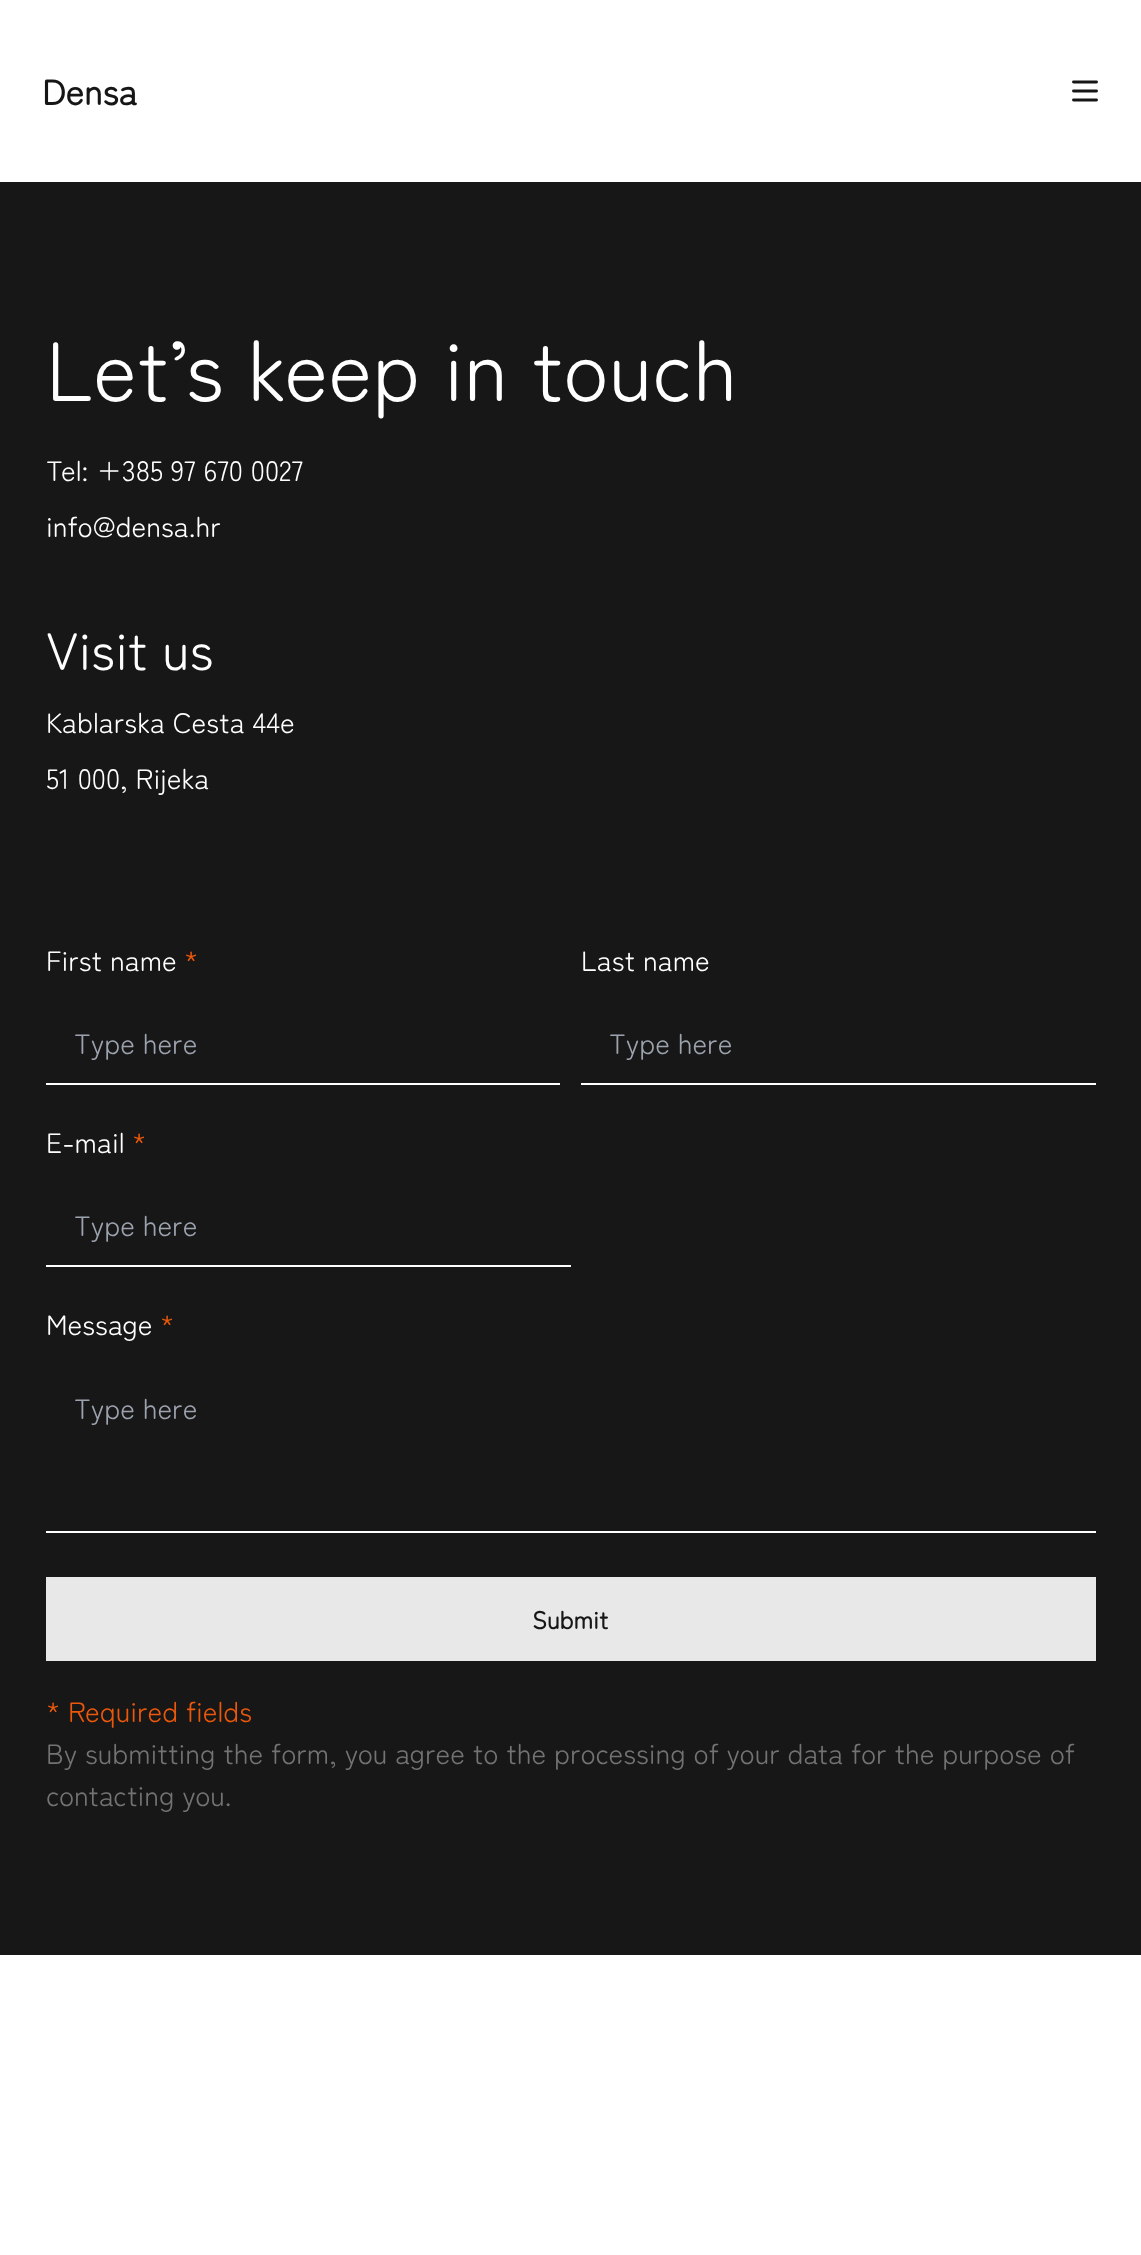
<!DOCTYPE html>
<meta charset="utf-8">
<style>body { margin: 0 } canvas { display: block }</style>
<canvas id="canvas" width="1141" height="2255"></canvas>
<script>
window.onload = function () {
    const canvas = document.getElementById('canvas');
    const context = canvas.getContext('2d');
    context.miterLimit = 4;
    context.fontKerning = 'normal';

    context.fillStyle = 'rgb(255, 255, 255)';
    context.fillRect(0, 0, 1141, 2255);
    context.beginPath();
    context.moveTo(1073.5, 82);
    context.lineTo(1096.5, 82);
    context.moveTo(1073.5, 91);
    context.lineTo(1096.5, 91);
    context.moveTo(1073.5, 100);
    context.lineTo(1096.5, 100);
    context.strokeStyle = 'rgb(22, 22, 22)';
    context.lineWidth = 2.9;
    context.lineCap = 'round';
    context.lineJoin = 'round';
    context.stroke();
    context.fillStyle = 'rgb(23, 23, 23)';
    context.fillRect(0, 182, 1141, 1773);
    context.fillStyle = 'rgb(255, 255, 255)';
    context.fillRect(46, 1083, 514, 2);
    context.fillRect(581, 1083, 515, 2);
    context.fillRect(46, 1265, 525, 2);
    context.fillRect(46, 1531, 1050, 2);
    context.fillStyle = 'rgb(232, 232, 232)';
    context.fillRect(46, 1577, 1050, 84);
    context.font = 'bold 35px Zen Maru Gothic';
    context.fillStyle = 'rgb(22, 22, 22)';
    context.fillText('Densa', 42, 105);
    context.font = '84px Zen Maru Gothic';
    context.fillStyle = 'rgb(255, 255, 255)';
    context.fillText('Let’s keep in touch', 46, 401);
    context.font = '28px Zen Maru Gothic';
    context.fillText('Tel: +385 97 670 0027', 46, 481);
    context.fillText('info@densa.hr', 46, 537);
    context.font = '52.5px Zen Maru Gothic';
    context.fillText('Visit us', 46, 670);
    context.font = '28px Zen Maru Gothic';
    context.fillText('Kablarska Cesta 44e', 46, 733);
    context.fillText('51 000, Rijeka', 46, 789);
    context.fillText('First name', 46, 971);
    context.fillStyle = 'rgb(234, 88, 12)';
    context.fillText('*', 184, 971);
    context.fillStyle = 'rgb(156, 163, 175)';
    context.fillText('Type here', 74, 1054);
    context.fillStyle = 'rgb(255, 255, 255)';
    context.fillText('Last name', 581, 971);
    context.fillStyle = 'rgb(156, 163, 175)';
    context.fillText('Type here', 609, 1054);
    context.fillStyle = 'rgb(255, 255, 255)';
    context.fillText('E-mail', 46, 1153);
    context.fillStyle = 'rgb(234, 88, 12)';
    context.fillText('*', 132, 1153);
    context.fillStyle = 'rgb(156, 163, 175)';
    context.fillText('Type here', 74, 1236);
    context.fillStyle = 'rgb(255, 255, 255)';
    context.fillText('Message', 46, 1335);
    context.fillStyle = 'rgb(234, 88, 12)';
    context.fillText('*', 160, 1335);
    context.fillStyle = 'rgb(156, 163, 175)';
    context.fillText('Type here', 74, 1419);
    context.font = 'bold 24.5px Zen Maru Gothic';
    context.fillStyle = 'rgb(22, 22, 22)';
    context.fillText('Submit', 532, 1629);
    context.font = '28px Zen Maru Gothic';
    context.fillStyle = 'rgb(234, 88, 12)';
    context.fillText('* Required fields', 46, 1722);
    context.fillStyle = 'rgb(115, 115, 115)';
    context.fillText('By submitting the form, you agree to the processing of your data for the purpose of', 46, 1764);
    context.fillText('contacting you.', 46, 1806);
};
</script>
